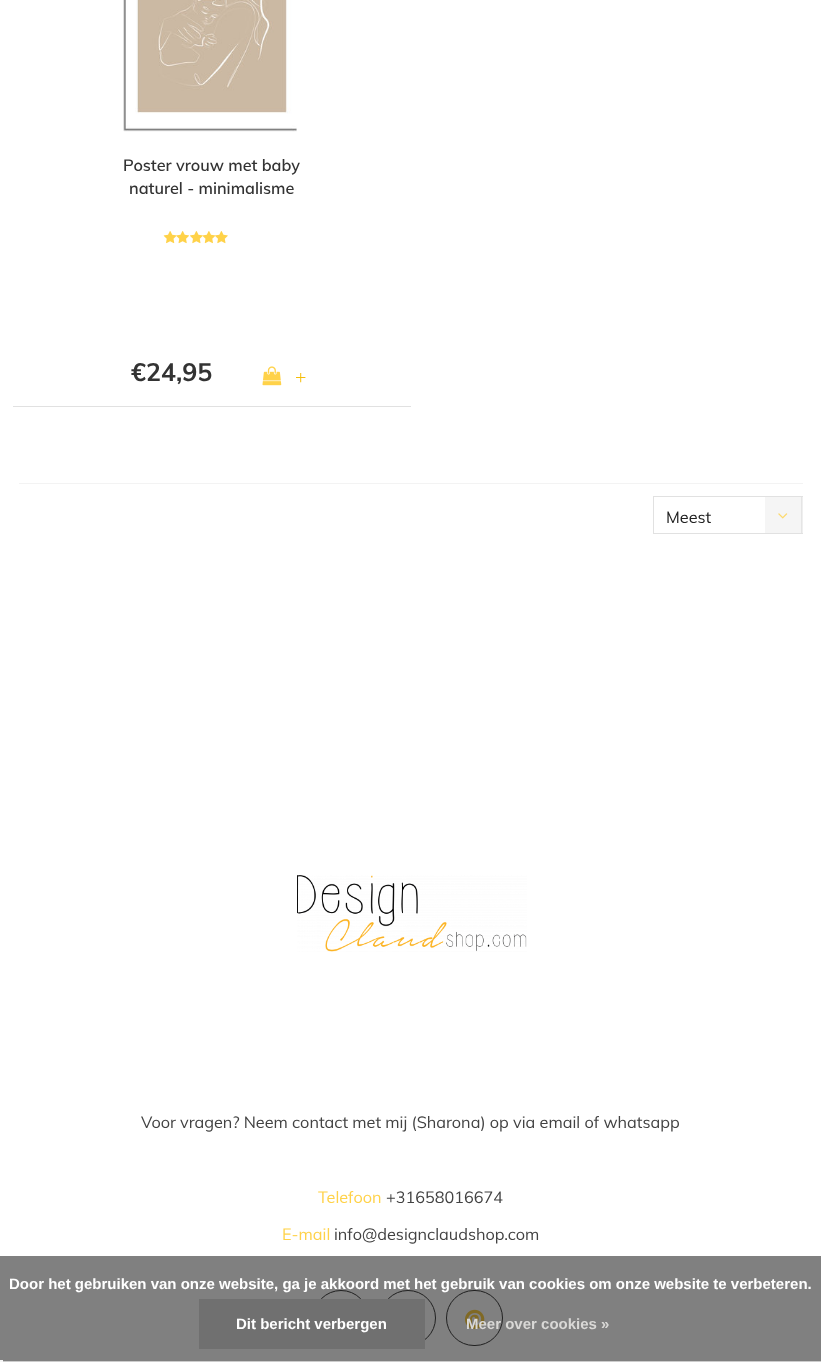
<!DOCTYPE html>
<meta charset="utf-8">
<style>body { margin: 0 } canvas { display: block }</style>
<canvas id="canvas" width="821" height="1362"></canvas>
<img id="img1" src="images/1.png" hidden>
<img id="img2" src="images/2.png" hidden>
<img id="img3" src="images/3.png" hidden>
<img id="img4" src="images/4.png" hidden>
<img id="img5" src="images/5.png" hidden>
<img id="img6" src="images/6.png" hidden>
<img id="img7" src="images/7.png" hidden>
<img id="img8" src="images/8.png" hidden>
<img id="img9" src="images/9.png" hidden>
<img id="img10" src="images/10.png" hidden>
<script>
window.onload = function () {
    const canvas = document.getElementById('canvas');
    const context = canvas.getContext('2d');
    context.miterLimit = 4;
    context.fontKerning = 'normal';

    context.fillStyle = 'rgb(255, 255, 255)';
    context.fillRect(0, 0, 821, 1362);
    context.fillStyle = 'rgb(128, 128, 128)';
    context.fillRect(0, 1256, 821, 105);
    context.fillStyle = 'rgb(225, 225, 225)';
    context.fillRect(13, 406, 398, 1);
    context.drawImage(document.getElementById('img1'), 123, 0, 174, 132);
    context.drawImage(document.getElementById('img2'), 163, 231, 14, 13);
    context.drawImage(document.getElementById('img3'), 176, 231, 13, 13);
    context.drawImage(document.getElementById('img4'), 190, 231, 13, 13);
    context.drawImage(document.getElementById('img5'), 202, 231, 14, 13);
    context.drawImage(document.getElementById('img6'), 215, 231, 13, 13);
    context.drawImage(document.getElementById('img7'), 262, 366, 20, 20);
    context.fillStyle = 'rgb(243, 243, 243)';
    context.fillRect(19, 483, 784, 1);
    context.strokeStyle = 'rgb(225, 225, 225)';
    context.strokeRect(653.5, 496.5, 149, 37);
    context.fillStyle = 'rgba(243, 243, 243, 0.8)';
    context.fillRect(765, 497, 38, 36);
    context.fillStyle = 'rgba(225, 225, 225, 0.8)';
    context.fillRect(801, 496, 1, 38);
    context.drawImage(document.getElementById('img8'), 778, 513, 10, 6);
    context.drawImage(document.getElementById('img9'), 297, 875, 230, 77);
    context.beginPath();
    context.arc(341, 1318, 27.5, 0, 2 * Math.PI);
    context.strokeStyle = 'rgb(33, 33, 33)';
    context.stroke();
    context.beginPath();
    context.arc(408, 1318, 27.5, 0, 2 * Math.PI);
    context.stroke();
    context.beginPath();
    context.roundRect(446.5, 1290.5, 56, 55, 27.5);
    context.stroke();
    context.drawImage(document.getElementById('img10'), 465, 1309, 20, 21);
    context.fillStyle = 'rgb(204, 204, 204)';
    context.fillRect(0, 1361, 821, 1);
    context.fillStyle = 'rgb(112, 112, 112)';
    context.fillRect(199, 1299, 226, 50);
    context.fillStyle = 'rgb(245, 245, 245)';
    context.fillRect(0, 1360, 3, 2);
    context.font = '600 16.25px Muli';
    context.fillStyle = 'rgb(51, 51, 51)';
    context.fillText('Poster vrouw met baby', 123, 171);
    context.fillText('naturel - minimalisme', 129, 194);
    context.font = 'bold 25px Muli';
    context.fillText('€24,95', 131, 381);
    context.letterSpacing = '1px';
    context.font = '300 19px Muli';
    context.fillStyle = 'rgb(245, 189, 9)';
    context.fillText('+', 295, 383);
    context.letterSpacing = '0px';
    context.font = '16.25px Muli';
    context.fillStyle = 'rgb(33, 33, 33)';
    context.fillText('Meest', 666, 523);
    context.fillStyle = 'rgb(66, 66, 66)';
    context.fillText('Voor vragen? Neem contact met mij (Sharona) op via email of whatsapp', 141, 1128);
    context.fillStyle = 'rgb(255, 210, 73)';
    context.fillText('Telefoon', 318, 1203);
    context.fillStyle = 'rgb(66, 66, 66)';
    context.fillText('+31658016674', 386, 1203);
    context.fillStyle = 'rgb(255, 210, 73)';
    context.fillText('E-mail', 282, 1240);
    context.fillStyle = 'rgb(66, 66, 66)';
    context.fillText('info@designclaudshop.com', 334, 1240);
    context.font = 'bold 15px Liberation Sans';
    context.fillStyle = 'rgb(255, 255, 255)';
    context.fillText('Door het gebruiken van onze website, ga je akkoord met het gebruik van cookies om onze website te verbeteren.', 9, 1289);
    context.fillText('Dit bericht verbergen', 236, 1329);
    context.fillStyle = 'rgb(217, 216, 214)';
    context.fillText('Meer over cookies »', 466, 1329);
};
</script>
